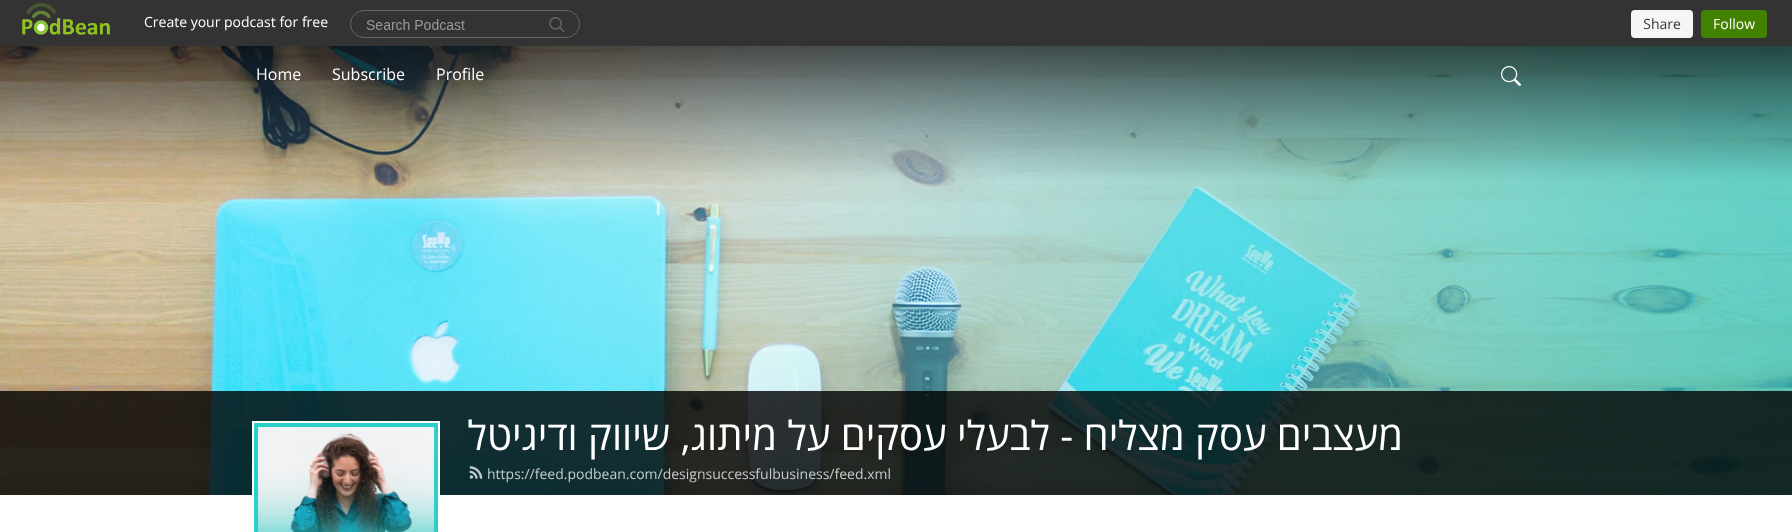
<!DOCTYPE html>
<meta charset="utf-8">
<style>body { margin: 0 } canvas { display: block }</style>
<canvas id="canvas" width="1792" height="532"></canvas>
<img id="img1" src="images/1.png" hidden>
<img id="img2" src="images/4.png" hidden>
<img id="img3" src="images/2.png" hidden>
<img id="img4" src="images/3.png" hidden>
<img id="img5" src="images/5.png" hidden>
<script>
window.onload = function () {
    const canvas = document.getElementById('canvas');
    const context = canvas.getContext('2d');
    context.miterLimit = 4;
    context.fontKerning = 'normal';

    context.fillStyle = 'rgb(255, 255, 255)';
    context.fillRect(0, 0, 1792, 532);
    context.fillStyle = 'rgb(51, 51, 51)';
    context.fillRect(0, 0, 1792, 46);
    context.drawImage(document.getElementById('img1'), 22, 3, 1745, 35);
    context.drawImage(document.getElementById('img2'), 0, 46, 1792, 449);
    context.drawImage(document.getElementById('img3'), 1501, 66, 20, 20);
    context.fillStyle = 'rgba(0, 0, 0, 0.8)';
    context.fillRect(0, 391, 1792, 104);
    context.strokeStyle = 'rgb(255, 255, 255)';
    context.lineWidth = 2;
    context.strokeRect(253, 422, 186, 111);
    context.drawImage(document.getElementById('img4'), 254, 423, 184, 109);
    context.drawImage(document.getElementById('img5'), 469, 466, 14, 13);
    context.font = '16px Open Sans';
    context.fillStyle = 'rgb(255, 255, 255)';
    context.fillText('Home', 256, 80);
    context.fillText('Subscribe', 332, 80);
    context.fillText('Profile', 436, 80);
    context.direction = 'rtl';
    context.font = '40px Open Sans';
    context.fillText('מעצבים עסק מצליח - לבעלי עסקים על מיתוג, שיווק ודיגיטל', 1403, 450);
    context.direction = 'ltr';
    context.font = '14px Open Sans';
    context.fillStyle = 'rgb(198, 202, 202)';
    context.fillText('https://feed.podbean.com/designsuccessfulbusiness/feed.xml', 487, 479);
};
</script>
